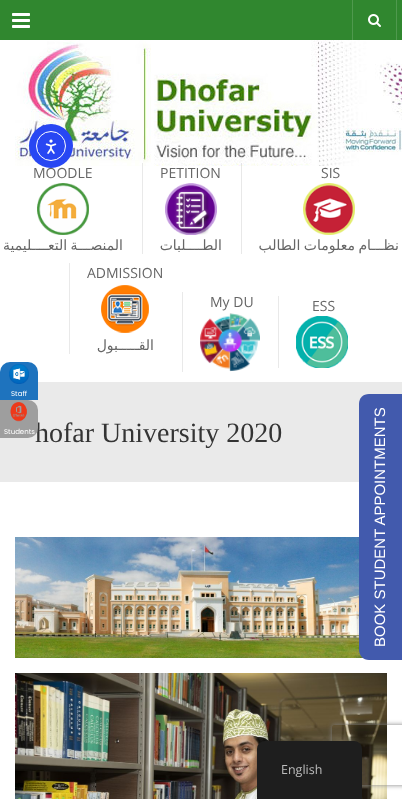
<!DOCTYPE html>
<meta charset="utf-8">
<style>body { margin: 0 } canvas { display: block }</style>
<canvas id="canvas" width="402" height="799"></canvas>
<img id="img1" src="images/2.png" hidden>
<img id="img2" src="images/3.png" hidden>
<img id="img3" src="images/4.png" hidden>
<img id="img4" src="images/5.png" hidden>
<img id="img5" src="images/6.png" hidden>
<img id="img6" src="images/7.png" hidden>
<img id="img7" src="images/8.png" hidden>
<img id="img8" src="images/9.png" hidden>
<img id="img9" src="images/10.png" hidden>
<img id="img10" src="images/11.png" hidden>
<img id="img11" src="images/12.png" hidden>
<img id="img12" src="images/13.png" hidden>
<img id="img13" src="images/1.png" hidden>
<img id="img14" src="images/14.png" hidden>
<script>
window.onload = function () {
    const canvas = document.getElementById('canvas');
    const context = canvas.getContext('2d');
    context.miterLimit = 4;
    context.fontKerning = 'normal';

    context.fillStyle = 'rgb(255, 255, 255)';
    context.fillRect(0, 0, 402, 799);
    context.fillStyle = 'rgb(48, 135, 47)';
    context.fillRect(0, 0, 402, 40);
    context.drawImage(document.getElementById('img1'), 12, 13, 18, 15);
    context.fillStyle = 'rgb(79, 153, 78)';
    context.fillRect(396, 0, 1, 40);
    context.fillRect(352, 0, 1, 40);
    context.drawImage(document.getElementById('img2'), 368, 14, 13, 13);
    context.drawImage(document.getElementById('img3'), 15, 40, 387, 126);
    context.drawImage(document.getElementById('img4'), 37, 183, 52, 52);
    context.fillStyle = 'rgb(233, 233, 233)';
    context.fillRect(142, 163, 1, 91);
    context.drawImage(document.getElementById('img5'), 165, 183, 52, 52);
    context.fillStyle = 'rgba(33, 33, 33, 0.1)';
    context.fillRect(241, 163, 1, 91);
    context.drawImage(document.getElementById('img6'), 303, 183, 52, 52);
    context.fillStyle = 'rgb(233, 233, 233)';
    context.fillRect(69, 263, 1, 91);
    context.drawImage(document.getElementById('img7'), 101, 285, 48, 48);
    context.fillRect(182, 292, 1, 80);
    context.drawImage(document.getElementById('img8'), 200, 313, 60, 59);
    context.fillRect(278, 296, 1, 72);
    context.drawImage(document.getElementById('img9'), 296, 316, 52, 52);
    context.fillStyle = 'rgb(234, 234, 234)';
    context.fillRect(0, 382, 402, 100);
    context.drawImage(document.getElementById('img10'), 15, 537, 348, 121);
    context.drawImage(document.getElementById('img11'), 15, 673, 372, 126);
    context.fillStyle = 'rgb(30, 115, 190)';
    context.beginPath();
    context.roundRect(0, 362, 38, 38, [10, 10, 0, 0]);
    context.fill();
    context.drawImage(document.getElementById('img12'), 9, 364, 20, 20);
    context.fillStyle = 'rgb(66, 90, 173)';
    context.beginPath();
    context.moveTo(359, 650);
    context.lineTo(359, 404);
    context.bezierCurveTo(359, 398, 363, 394, 369, 394);
    context.lineTo(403, 394);
    context.lineTo(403, 660);
    context.lineTo(369, 660);
    context.bezierCurveTo(363, 660, 359, 655, 359, 650);
    context.closePath();
    context.fill();
    context.fillStyle = 'rgba(0, 0, 0, 0.25)';
    context.filter = 'blur(4px)';
    context.beginPath();
    context.roundRect(257, 741, 105, 58, 8);
    context.fill();
    context.filter = 'none';
    context.save();
    context.beginPath();
    context.moveTo(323, 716);
    context.lineTo(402, 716);
    context.lineTo(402, 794);
    context.lineTo(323, 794);
    context.closePath();
    context.moveTo(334, 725);
    context.lineTo(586, 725);
    context.bezierCurveTo(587, 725, 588, 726, 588, 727);
    context.lineTo(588, 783);
    context.bezierCurveTo(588, 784, 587, 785, 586, 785);
    context.lineTo(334, 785);
    context.bezierCurveTo(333, 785, 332, 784, 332, 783);
    context.lineTo(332, 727);
    context.bezierCurveTo(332, 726, 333, 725, 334, 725);
    context.closePath();
    context.clip('evenodd');
    context.fillStyle = 'rgb(128, 128, 128)';
    context.filter = 'blur(2.5px)';
    context.beginPath();
    context.roundRect(332, 725, 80, 60, 2);
    context.fill();
    context.filter = 'none';
    context.restore();
    context.fillStyle = 'rgb(30, 30, 30)';
    context.beginPath();
    context.roundRect(257, 741, 105, 58, [8, 8, 0, 0]);
    context.fill();
    context.font = '14px Open Sans';
    context.fillStyle = 'rgb(102, 102, 102)';
    context.fillText('MOODLE', 33, 178);
    context.fillStyle = 'rgb(40, 71, 243)';
    context.beginPath();
    context.arc(51, 146, 22, 0, 2 * Math.PI);
    context.fill();
    context.beginPath();
    context.arc(51, 146, 14.5, 0, 2 * Math.PI);
    context.strokeStyle = 'rgb(255, 255, 255)';
    context.stroke();
    context.drawImage(document.getElementById('img13'), 45, 139, 12, 15);
    context.wordSpacing = '-1px';
    context.direction = 'rtl';
    context.font = '14px DejaVu Sans';
    context.fillStyle = 'rgb(102, 102, 102)';
    context.fillText('المنصـــة التعــــليمية', 123, 250);
    context.wordSpacing = '0px';
    context.direction = 'ltr';
    context.font = '14px Open Sans';
    context.fillText('PETITION', 160, 178);
    context.direction = 'rtl';
    context.font = '14px DejaVu Sans';
    context.fillText('الطــــلبات', 222, 250);
    context.direction = 'ltr';
    context.font = '14px Open Sans';
    context.fillText('SIS', 321, 178);
    context.wordSpacing = '-1px';
    context.direction = 'rtl';
    context.font = '14px DejaVu Sans';
    context.fillText('نظـــام معلومات الطالب', 399, 250);
    context.wordSpacing = '0px';
    context.direction = 'ltr';
    context.font = '14px Open Sans';
    context.fillText('ADMISSION', 87, 278);
    context.direction = 'rtl';
    context.font = '14px DejaVu Sans';
    context.fillText('القـــــبول', 154, 350);
    context.direction = 'ltr';
    context.font = '14px Open Sans';
    context.fillText('My DU', 210, 307);
    context.fillText('ESS', 312, 311);
    context.font = '28px Liberation Serif';
    context.fillStyle = 'rgb(52, 52, 52)';
    context.fillText('hofar University 2020', 35, 442);
    context.font = '7px Poppins';
    context.fillStyle = 'rgb(255, 255, 255)';
    context.fillText('Staff', 11, 396);
    context.fillStyle = 'rgb(158, 158, 158)';
    context.beginPath();
    context.roundRect(0, 400, 38, 38, [0, 10, 10, 0]);
    context.fill();
    context.drawImage(document.getElementById('img14'), 10, 402, 17, 20);
    context.fillStyle = 'rgb(255, 255, 255)';
    context.fillText('Students', 4, 434);
    context.font = '15px Liberation Sans';
    context.save();
    context.translate(385, 647);
    context.rotate(-90 * Math.PI / 180);
    context.fillText('BOOK STUDENT APPOINTMENTS', 0, 0);
    context.restore();
    context.font = '12.5px Open Sans';
    context.fillStyle = 'rgb(189, 189, 189)';
    context.fillText('English', 281, 774);
};
</script>
